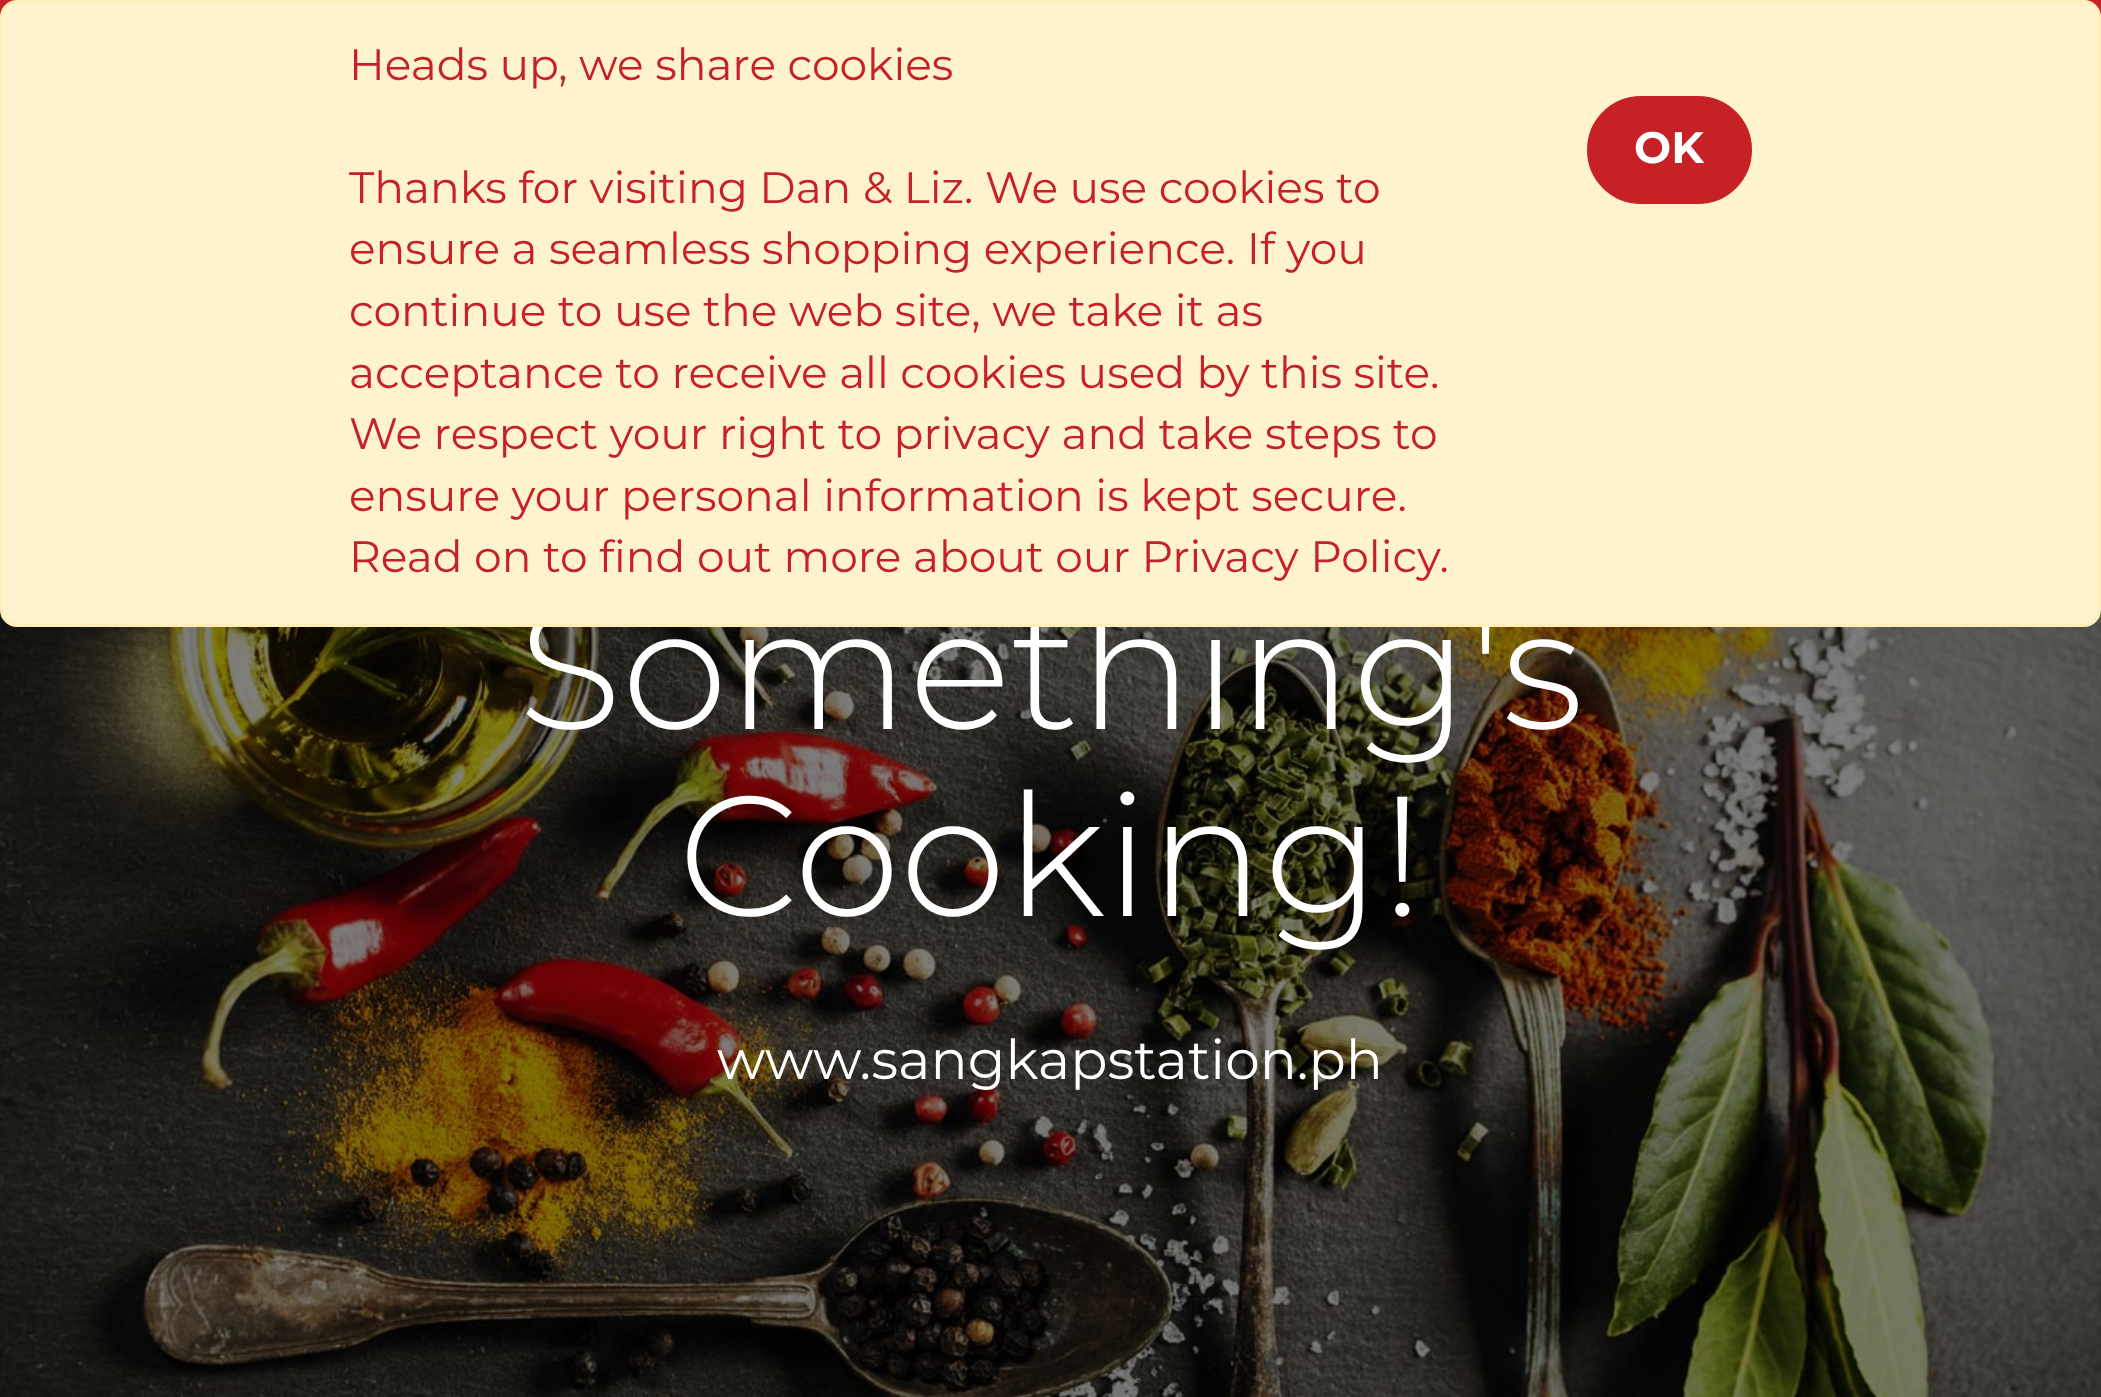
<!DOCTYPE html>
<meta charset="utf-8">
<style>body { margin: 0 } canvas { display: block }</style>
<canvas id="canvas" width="2101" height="1397"></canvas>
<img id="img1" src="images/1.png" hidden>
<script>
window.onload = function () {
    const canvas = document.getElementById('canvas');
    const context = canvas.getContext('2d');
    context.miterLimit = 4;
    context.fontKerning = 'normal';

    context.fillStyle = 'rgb(198, 33, 39)';
    context.fillRect(0, 0, 2101, 1397);
    context.drawImage(document.getElementById('img1'), 0, 610, 2101, 787);
    context.font = '300 170.5px Montserrat';
    context.fillStyle = 'rgb(255, 255, 255)';
    context.fillText('Something\'s', 518, 729);
    context.fillStyle = 'rgb(255, 243, 205)';
    context.beginPath();
    context.roundRect(1.5, 1.5, 2098, 624, 15.5);
    context.fill();
    context.strokeStyle = 'rgb(255, 238, 186)';
    context.lineWidth = 3;
    context.stroke();
    context.fillStyle = 'rgb(198, 33, 39)';
    context.beginPath();
    context.roundRect(1590, 99, 159, 102, 51);
    context.fill();
    context.strokeStyle = 'rgb(198, 33, 39)';
    context.lineWidth = 6;
    context.stroke();
    context.font = 'bold 44px Montserrat';
    context.fillStyle = 'rgb(255, 255, 255)';
    context.fillText('OK', 1634, 163);
    context.font = '44px Montserrat';
    context.fillStyle = 'rgb(198, 33, 39)';
    context.fillText('Read on to find out more about our Privacy Policy.', 349, 572);
    context.fillText('ensure your personal information is kept secure.', 349, 511);
    context.fillText('We respect your right to privacy and take steps to', 349, 449);
    context.fillText('acceptance to receive all cookies used by this site.', 349, 388);
    context.fillText('continue to use the web site, we take it as', 349, 326);
    context.fillText('ensure a seamless shopping experience. If you', 349, 264);
    context.fillText('Thanks for visiting Dan & Liz. We use cookies to', 349, 203);
    context.fillText('Heads up, we share cookies', 349, 80);
    context.font = '300 170.5px Montserrat';
    context.fillStyle = 'rgb(255, 255, 255)';
    context.fillText('Cooking!', 678, 916);
    context.font = '55px Montserrat';
    context.fillText('www.sangkapstation.ph', 717, 1079);
};
</script>
